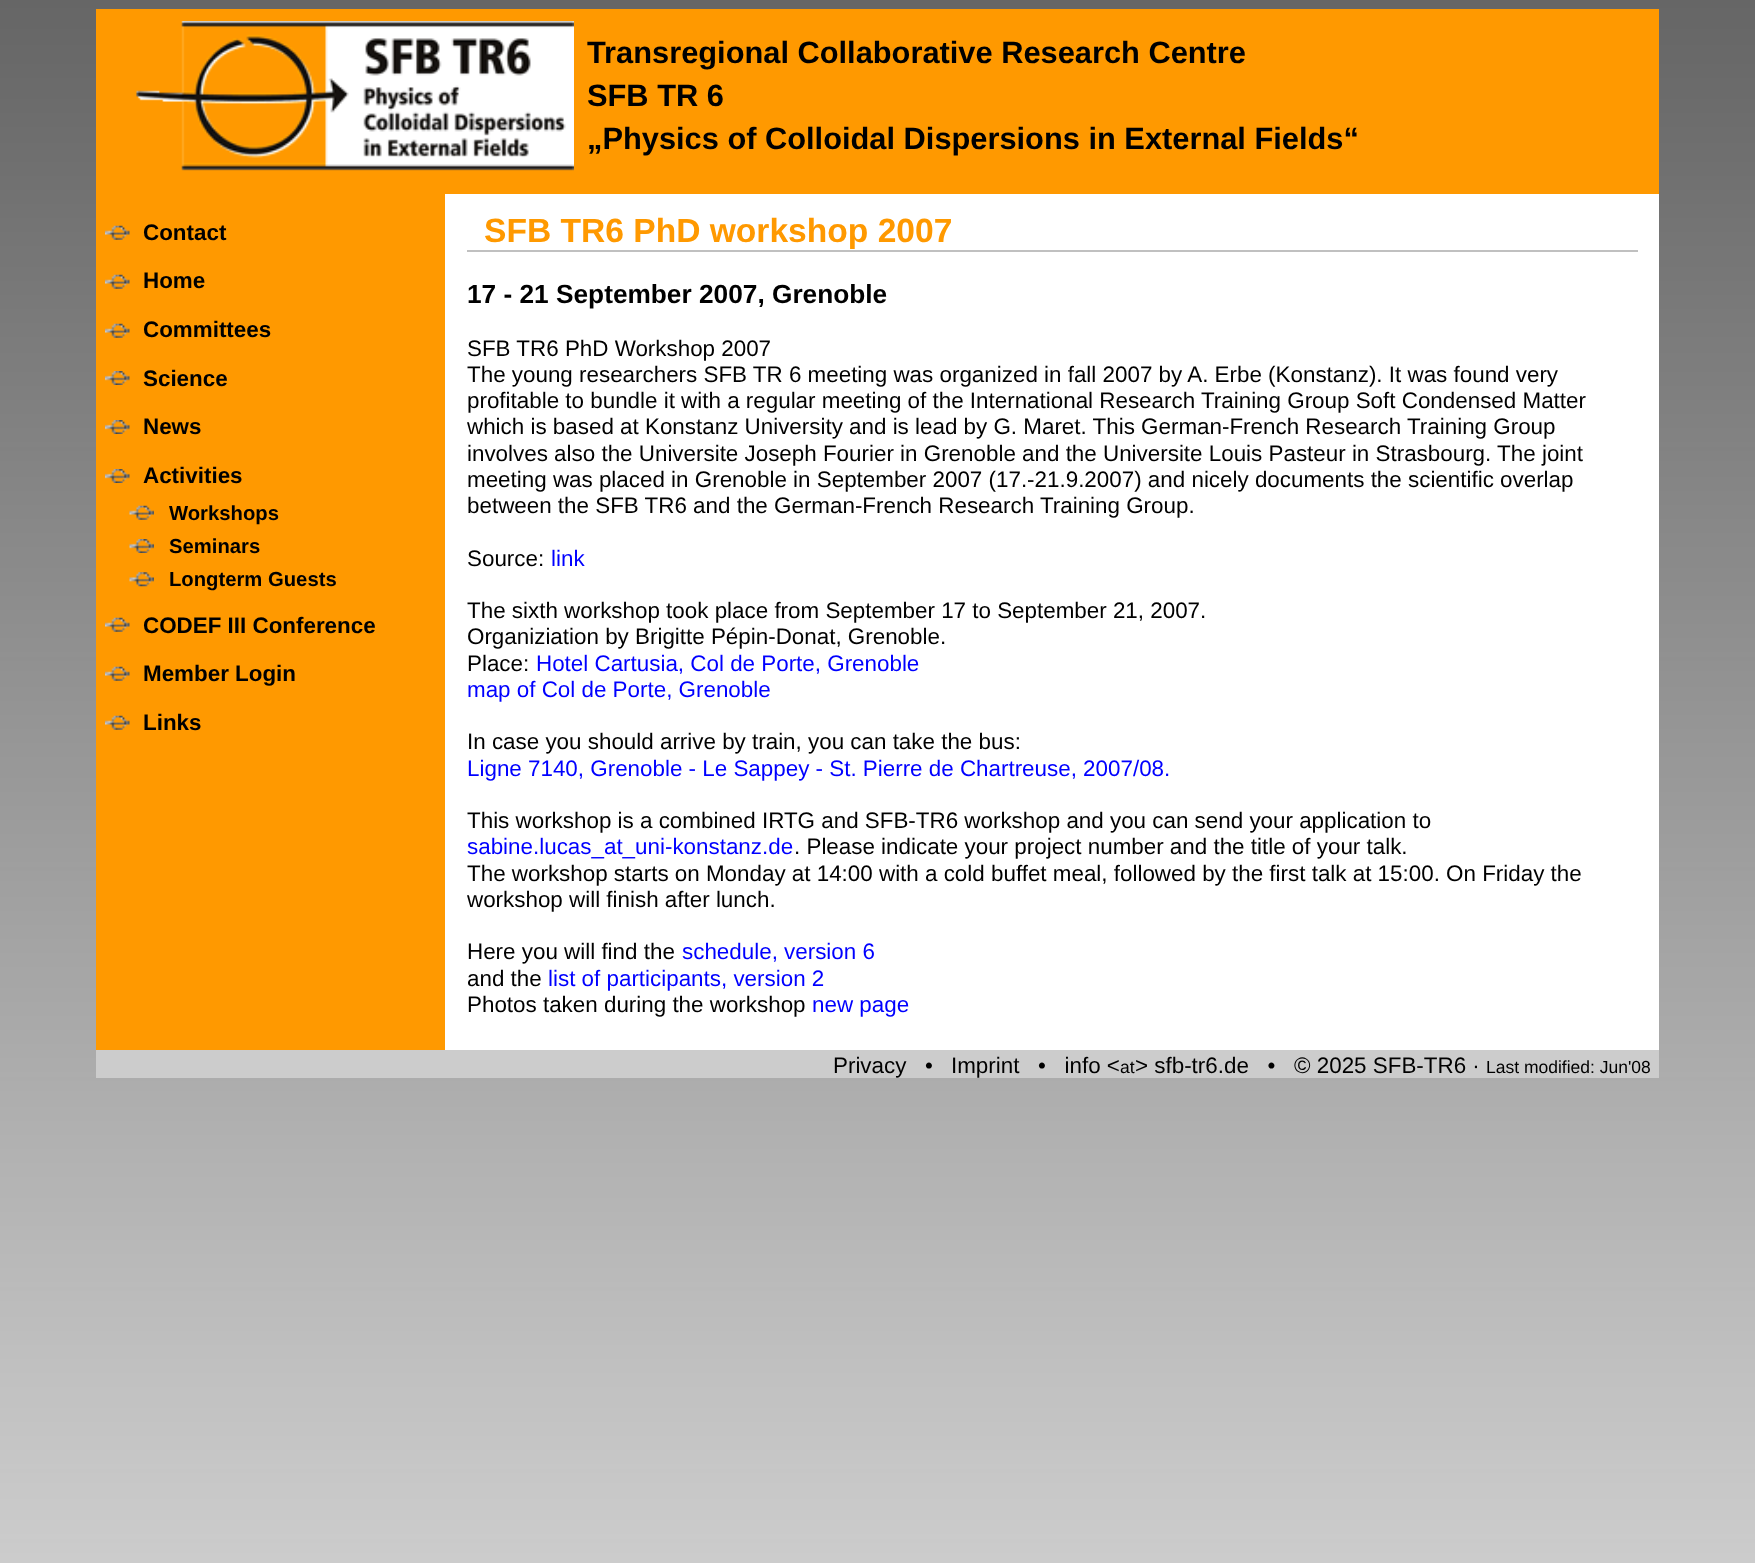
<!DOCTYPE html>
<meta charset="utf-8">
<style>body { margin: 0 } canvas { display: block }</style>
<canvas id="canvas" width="1755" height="1563"></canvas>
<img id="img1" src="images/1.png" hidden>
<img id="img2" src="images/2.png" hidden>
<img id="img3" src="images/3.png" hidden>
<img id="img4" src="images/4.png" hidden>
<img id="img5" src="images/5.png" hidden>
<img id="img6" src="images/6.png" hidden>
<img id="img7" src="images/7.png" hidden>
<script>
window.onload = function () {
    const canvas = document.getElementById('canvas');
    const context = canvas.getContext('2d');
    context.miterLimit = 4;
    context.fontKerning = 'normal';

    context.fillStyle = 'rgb(255, 255, 255)';
    context.fillRect(0, 0, 1755, 1563);
    context.drawImage(document.getElementById('img1'), 0, 0, 1755, 1563);
    context.fillStyle = 'rgb(255, 153, 0)';
    context.fillRect(96, 9, 1563, 185);
    context.drawImage(document.getElementById('img2'), 136, 21, 438, 150);
    context.fillRect(96, 194, 349, 856);
    context.drawImage(document.getElementById('img3'), 105, 225, 25, 15);
    context.drawImage(document.getElementById('img3'), 105, 274, 25, 15);
    context.drawImage(document.getElementById('img3'), 105, 323, 25, 15);
    context.drawImage(document.getElementById('img4'), 105, 371, 25, 14);
    context.drawImage(document.getElementById('img4'), 105, 420, 25, 14);
    context.drawImage(document.getElementById('img4'), 105, 469, 25, 14);
    context.drawImage(document.getElementById('img5'), 129, 505, 25, 15);
    context.drawImage(document.getElementById('img6'), 129, 539, 25, 14);
    context.drawImage(document.getElementById('img7'), 129, 572, 25, 15);
    context.drawImage(document.getElementById('img3'), 105, 617, 25, 15);
    context.drawImage(document.getElementById('img3'), 105, 666, 25, 15);
    context.drawImage(document.getElementById('img3'), 105, 715, 25, 15);
    context.fillStyle = 'rgb(255, 255, 255)';
    context.fillRect(445, 194, 1214, 856);
    context.fillStyle = 'rgb(192, 192, 192)';
    context.fillRect(467, 250, 1171, 2);
    context.fillStyle = 'rgb(204, 204, 204)';
    context.fillRect(96, 1050, 1563, 28);
    context.font = 'bold 30.8px Liberation Sans';
    context.fillStyle = 'rgb(0, 0, 0)';
    context.fillText('Transregional Collaborative Research Centre', 587, 63);
    context.fillText('SFB TR 6', 587, 106);
    context.fillText('„Physics of Colloidal Dispersions in External Fields“', 587, 149);
    context.font = 'bold 22.4px Liberation Sans';
    context.fillText('Contact', 143, 240);
    context.fillText('Home', 143, 288);
    context.fillText('Committees', 143, 337);
    context.fillText('Science', 143, 386);
    context.fillText('News', 143, 434);
    context.fillText('Activities', 143, 483);
    context.font = 'bold 20.25px Liberation Sans';
    context.fillText('Workshops', 169, 520);
    context.fillText('Seminars', 169, 553);
    context.fillText('Longterm Guests', 169, 586);
    context.font = 'bold 22.4px Liberation Sans';
    context.fillText('CODEF III Conference', 143, 633);
    context.fillText('Member Login', 143, 681);
    context.fillText('Links', 143, 730);
    context.font = 'bold 33.6px Liberation Sans';
    context.fillStyle = 'rgb(255, 153, 0)';
    context.fillText('SFB TR6 PhD workshop 2007', 484, 242);
    context.font = 'bold 26.25px Liberation Sans';
    context.fillStyle = 'rgb(0, 0, 0)';
    context.fillText('17 - 21 September 2007, Grenoble', 467, 303);
    context.font = '22.4px Liberation Sans';
    context.fillText('SFB TR6 PhD Workshop 2007', 467, 356);
    context.fillText('The young researchers SFB TR 6 meeting was organized in fall 2007 by A. Erbe (Konstanz). It was found very', 467, 382);
    context.fillText('profitable to bundle it with a regular meeting of the International Research Training Group Soft Condensed Matter', 467, 408);
    context.fillText('which is based at Konstanz University and is lead by G. Maret. This German-French Research Training Group', 467, 434);
    context.fillText('involves also the Universite Joseph Fourier in Grenoble and the Universite Louis Pasteur in Strasbourg. The joint', 467, 461);
    context.fillText('meeting was placed in Grenoble in September 2007 (17.-21.9.2007) and nicely documents the scientific overlap', 467, 487);
    context.fillText('between the SFB TR6 and the German-French Research Training Group.', 467, 513);
    context.fillText('Source:', 467, 566);
    context.fillStyle = 'rgb(0, 0, 255)';
    context.fillText('link', 551, 566);
    context.fillStyle = 'rgb(0, 0, 0)';
    context.fillText('The sixth workshop took place from September 17 to September 21, 2007.', 467, 618);
    context.fillText('Organiziation by Brigitte Pépin-Donat, Grenoble.', 467, 644);
    context.fillText('Place:', 467, 671);
    context.fillStyle = 'rgb(0, 0, 255)';
    context.fillText('Hotel Cartusia, Col de Porte, Grenoble', 536, 671);
    context.fillText('map of Col de Porte, Grenoble', 467, 697);
    context.fillStyle = 'rgb(0, 0, 0)';
    context.fillText('In case you should arrive by train, you can take the bus:', 467, 749);
    context.fillStyle = 'rgb(0, 0, 255)';
    context.fillText('Ligne 7140, Grenoble - Le Sappey - St. Pierre de Chartreuse, 2007/08.', 467, 776);
    context.fillStyle = 'rgb(0, 0, 0)';
    context.fillText('This workshop is a combined IRTG and SFB-TR6 workshop and you can send your application to', 467, 828);
    context.fillStyle = 'rgb(0, 0, 255)';
    context.fillText('sabine.lucas_at_uni-konstanz.de', 467, 854);
    context.fillStyle = 'rgb(0, 0, 0)';
    context.fillText('. Please indicate your project number and the title of your talk.', 794, 854);
    context.fillText('The workshop starts on Monday at 14:00 with a cold buffet meal, followed by the first talk at 15:00. On Friday the', 467, 881);
    context.fillText('workshop will finish after lunch.', 467, 907);
    context.fillText('Here you will find the', 467, 959);
    context.fillStyle = 'rgb(0, 0, 255)';
    context.fillText('schedule, version 6', 682, 959);
    context.fillStyle = 'rgb(0, 0, 0)';
    context.fillText('and the', 467, 986);
    context.fillStyle = 'rgb(0, 0, 255)';
    context.fillText('list of participants, version 2', 548, 986);
    context.fillStyle = 'rgb(0, 0, 0)';
    context.fillText('Photos taken during the workshop', 467, 1012);
    context.fillStyle = 'rgb(0, 0, 255)';
    context.fillText('new page', 812, 1012);
    context.fillStyle = 'rgb(0, 0, 0)';
    context.fillText('Privacy', 833, 1073);
    context.fillText('•', 925, 1073);
    context.fillText('Imprint', 951, 1073);
    context.fillText('•   info <', 1038, 1073);
    context.font = '17.5px Liberation Sans';
    context.fillText('at', 1120, 1073);
    context.font = '22.4px Liberation Sans';
    context.fillText('> sfb-tr6.de   •   © 2025 SFB-TR6 ·', 1135, 1073);
    context.font = '17.5px Liberation Sans';
    context.fillText('Last modified: Jun\'08', 1486, 1073);
};
</script>
